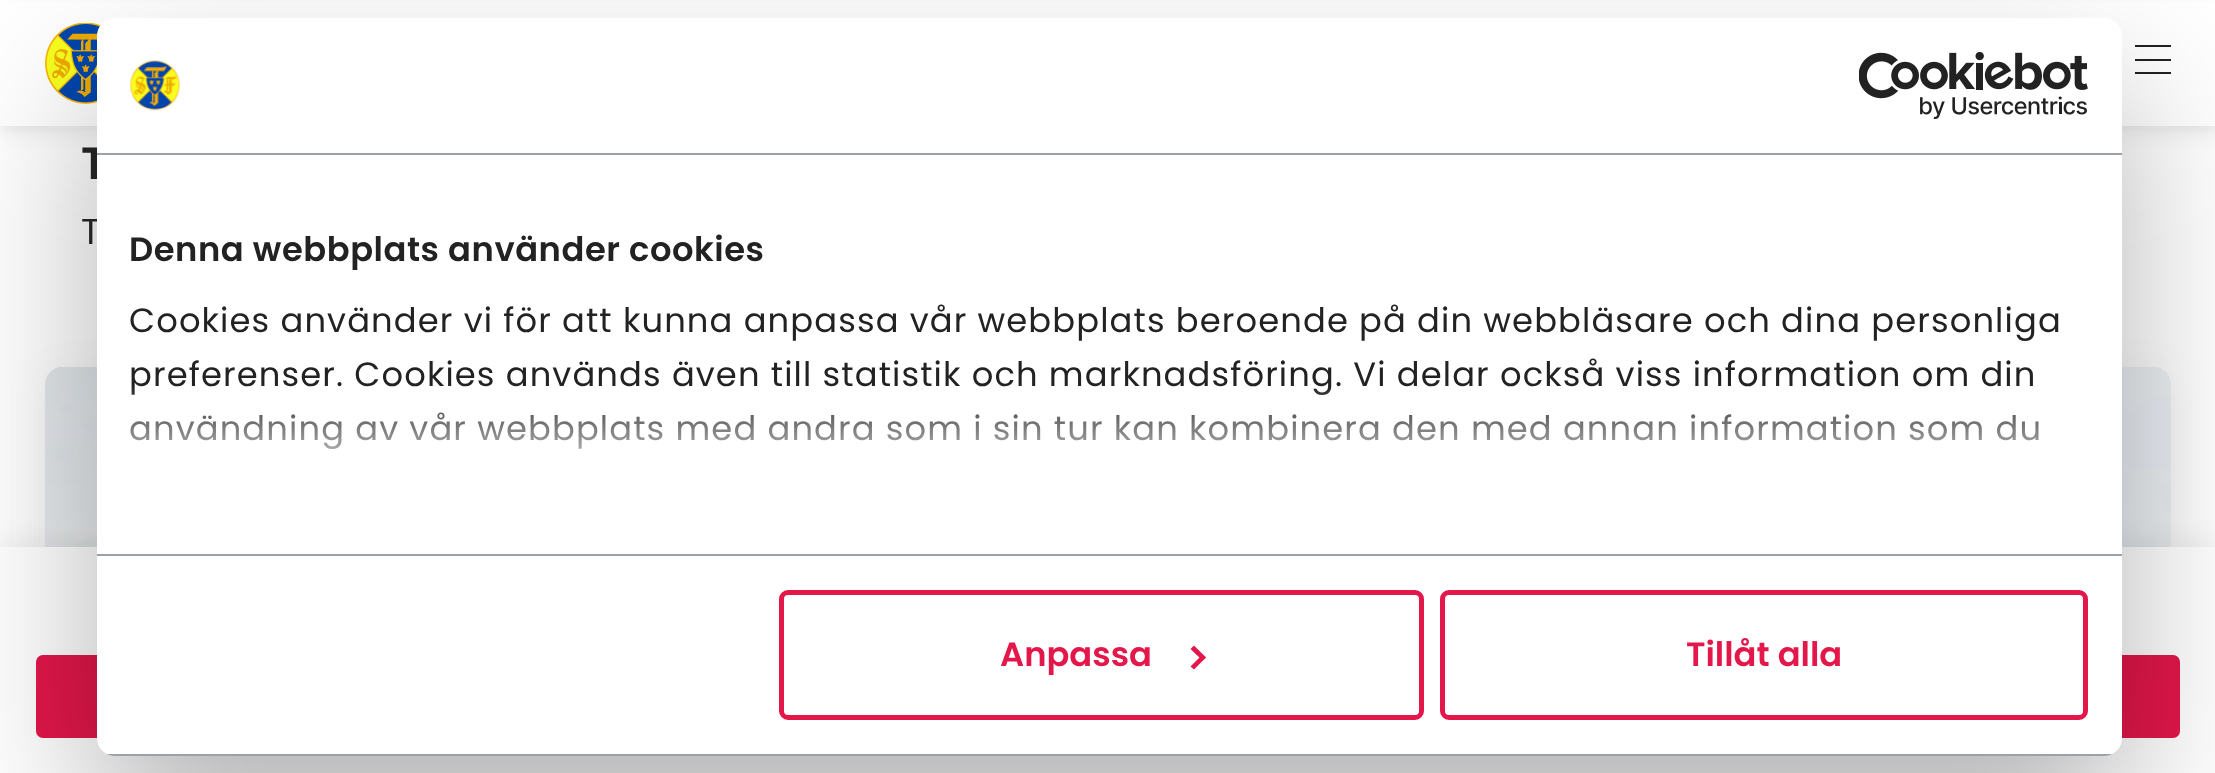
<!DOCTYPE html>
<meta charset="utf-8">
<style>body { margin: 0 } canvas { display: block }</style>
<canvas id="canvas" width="2215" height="773"></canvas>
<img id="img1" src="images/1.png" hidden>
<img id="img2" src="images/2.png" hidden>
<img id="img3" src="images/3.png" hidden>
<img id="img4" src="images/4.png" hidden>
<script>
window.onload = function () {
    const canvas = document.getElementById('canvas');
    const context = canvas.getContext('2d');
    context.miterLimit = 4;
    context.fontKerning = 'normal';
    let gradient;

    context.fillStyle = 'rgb(255, 255, 255)';
    context.fillRect(0, 0, 2215, 773);
    context.fillStyle = 'rgba(0, 0, 0, 0.04)';
    context.filter = 'blur(9px)';
    context.beginPath();
    context.rect(5, 14, 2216, 126);
    context.fill();
    context.filter = 'none';
    context.filter = 'blur(3.5px)';
    context.beginPath();
    context.rect(0, 5, 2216, 126);
    context.fill();
    context.filter = 'none';
    context.fillStyle = 'rgb(255, 255, 255)';
    context.fillRect(0, 2, 2215, 124);
    context.drawImage(document.getElementById('img1'), 45, 23, 56, 81);
    context.fillStyle = 'rgb(34, 34, 34)';
    context.fillRect(2135, 45, 36, 2);
    context.fillRect(2135, 59, 36, 2);
    context.fillRect(2135, 72, 36, 2);
    context.fillStyle = 'rgba(0, 0, 0, 0.05)';
    context.filter = 'blur(22.5px)';
    context.beginPath();
    context.roundRect(47, 376, 2127, 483, 18);
    context.fill();
    context.filter = 'none';
    context.drawImage(document.getElementById('img2'), 45, 367, 2126, 180);
    context.filter = 'blur(11px)';
    context.beginPath();
    context.rect(0, 538, 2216, 227);
    context.fill();
    context.filter = 'none';
    context.fillStyle = 'rgb(255, 255, 255)';
    context.fillRect(0, 547, 2215, 226);
    context.fillStyle = 'rgb(227, 23, 74)';
    context.beginPath();
    context.roundRect(36, 655, 2144, 83, 7);
    context.fill();
    context.fillStyle = 'rgba(0, 0, 0, 0.3)';
    context.filter = 'blur(76.5px)';
    context.beginPath();
    context.roundRect(97, 90, 2025, 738, 18);
    context.fill();
    context.filter = 'none';
    context.font = '600 45px Poppins';
    context.fillStyle = 'rgb(34, 34, 34)';
    context.fillText('T', 81, 179);
    context.font = '36px Poppins';
    context.fillText('T', 81, 244);
    context.fillStyle = 'rgb(255, 255, 255)';
    context.beginPath();
    context.roundRect(97, 18, 2025, 738, 18);
    context.fill();
    context.fillStyle = 'rgb(156, 161, 165)';
    context.fillRect(97, 153, 2025, 2);
    context.drawImage(document.getElementById('img3'), 130, 60, 50, 51);
    context.drawImage(document.getElementById('img4'), 1859, 52, 229, 67);
    context.fillRect(97, 554, 2025, 2);
    context.letterSpacing = '0.55px';
    context.font = '600 33.75px Poppins';
    context.fillStyle = 'rgb(34, 34, 34)';
    context.fillText('Denna webbplats använder cookies', 129, 261);
    context.letterSpacing = '1.12px';
    context.font = '33.75px Poppins';
    context.fillText('Cookies använder vi för att kunna anpassa vår webbplats beroende på din webbläsare och dina personliga', 129, 332);
    context.fillText('preferenser. Cookies används även till statistik och marknadsföring. Vi delar också viss information om din', 129, 386);
    context.fillText('användning av vår webbplats med andra som i sin tur kan kombinera den med annan information som du', 129, 440);
    gradient = context.createLinearGradient(1095, 554, 1095, 385);
    gradient.addColorStop(0, 'rgb(255, 255, 255)');
    gradient.addColorStop(0.5, 'rgba(255, 255, 255, 0.8)');
    gradient.addColorStop(1, 'rgba(255, 255, 255, 0)');
    context.fillStyle = gradient;
    context.fillRect(130, 387, 1910, 63);
    context.save();
    context.beginPath();
    context.roundRect(97, 18, 2025, 738, 18);
    context.clip();
    context.fillStyle = 'rgb(156, 161, 165)';
    context.fillRect(107, 754, 2005, 2);
    context.restore();
    context.beginPath();
    context.roundRect(781.5, 592.5, 640, 125, 6.5);
    context.strokeStyle = 'rgb(227, 23, 74)';
    context.lineWidth = 5;
    context.stroke();
    context.letterSpacing = '0px';
    context.font = '600 33.75px Poppins';
    context.fillStyle = 'rgb(227, 23, 74)';
    context.fillText('Anpassa', 1000, 666);
    context.beginPath();
    context.moveTo(1194, 645.5);
    context.lineTo(1206, 657.5);
    context.lineTo(1202.5, 660.5);
    context.lineTo(1190.5, 649);
    context.closePath();
    context.fill();
    context.beginPath();
    context.moveTo(1202.5, 654.5);
    context.lineTo(1206, 657.5);
    context.lineTo(1194, 669.5);
    context.lineTo(1190.5, 666.5);
    context.closePath();
    context.fill();
    context.beginPath();
    context.roundRect(1442.5, 592.5, 643, 125, 6.5);
    context.stroke();
    context.fillText('Tillåt alla', 1686, 666);
};
</script>
